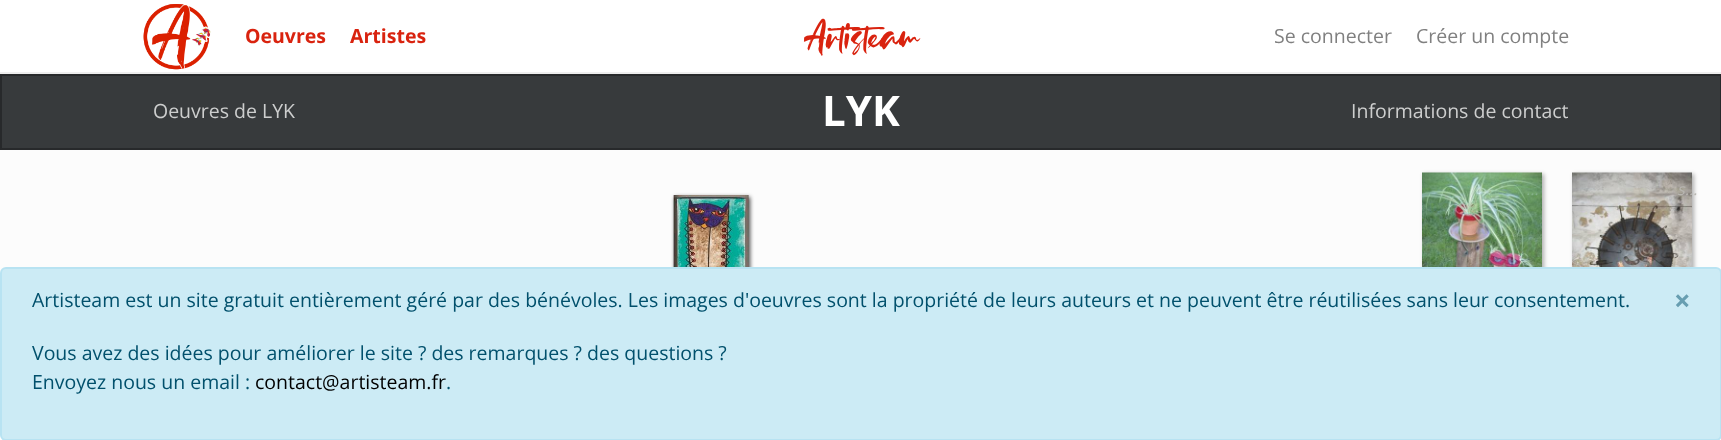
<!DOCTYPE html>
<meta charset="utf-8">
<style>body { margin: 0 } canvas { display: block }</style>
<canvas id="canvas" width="1721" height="440"></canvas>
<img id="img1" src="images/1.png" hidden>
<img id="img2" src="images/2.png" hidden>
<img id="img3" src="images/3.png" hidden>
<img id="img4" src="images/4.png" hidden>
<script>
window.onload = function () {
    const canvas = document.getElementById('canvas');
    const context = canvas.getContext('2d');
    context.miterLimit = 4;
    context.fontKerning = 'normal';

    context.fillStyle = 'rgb(252, 252, 252)';
    context.fillRect(0, 0, 1721, 440);
    context.fillStyle = 'rgb(255, 255, 255)';
    context.fillRect(0, 0, 1721, 72);
    context.fillStyle = 'rgb(238, 238, 238)';
    context.fillRect(0, 72, 1721, 2);
    context.drawImage(document.getElementById('img1'), 143, 4, 68, 66);
    context.fillStyle = 'rgb(55, 58, 60)';
    context.beginPath();
    context.rect(1, 75, 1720, 74);
    context.fill();
    context.strokeStyle = 'rgb(39, 41, 43)';
    context.lineWidth = 2;
    context.stroke();
    context.fillStyle = 'rgba(0, 0, 0, 0.72)';
    context.filter = 'blur(2px)';
    context.beginPath();
    context.rect(675, 197, 75, 105);
    context.fill();
    context.filter = 'none';
    context.drawImage(document.getElementById('img2'), 673, 195, 76, 72);
    context.fillStyle = 'rgba(0, 0, 0, 0.31)';
    context.filter = 'blur(2px)';
    context.beginPath();
    context.rect(1424, 174, 120, 161);
    context.fill();
    context.filter = 'none';
    context.drawImage(document.getElementById('img3'), 1422, 172, 120, 95);
    context.filter = 'blur(2px)';
    context.beginPath();
    context.rect(1574, 174, 120, 161);
    context.fill();
    context.filter = 'none';
    context.drawImage(document.getElementById('img4'), 1572, 172, 120, 95);
    context.fillStyle = 'rgb(255, 255, 255)';
    context.fillRect(0, 435, 1721, 5);
    context.fillStyle = 'rgb(204, 235, 245)';
    context.beginPath();
    context.roundRect(1, 268, 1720, 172, 5);
    context.fill();
    context.strokeStyle = 'rgb(184, 227, 242)';
    context.stroke();
    context.font = '45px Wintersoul';
    context.fillStyle = 'rgb(217, 35, 15)';
    context.fillText('Artisteam', 803, 50);
    context.font = 'bold 19.5px Open Sans';
    context.fillText('Oeuvres', 245, 43);
    context.fillText('Artistes', 350, 43);
    context.font = '19.5px Open Sans';
    context.fillStyle = 'rgb(128, 128, 128)';
    context.fillText('Se connecter', 1274, 43);
    context.fillText('Créer un compte', 1416, 43);
    context.font = 'bold 42px Open Sans';
    context.fillStyle = 'rgb(255, 255, 255)';
    context.fillText('LYK', 822, 126);
    context.font = '19.5px Open Sans';
    context.fillStyle = 'rgb(205, 206, 206)';
    context.fillText('Oeuvres de LYK', 153, 118);
    context.fillText('Informations de contact', 1351, 118);
    context.font = 'italic 16px Open Sans';
    context.fillStyle = 'rgb(133, 177, 139)';
    context.fillText('…', 1526, 195);
    context.fillStyle = 'rgb(184, 182, 177)';
    context.fillText('s…', 1677, 195);
    context.font = '19.5px Open Sans';
    context.fillStyle = 'rgb(1, 80, 108)';
    context.fillText('Artisteam est un site gratuit entièrement géré par des bénévoles. Les images d\'oeuvres sont la propriété de leurs auteurs et ne peuvent être réutilisées sans leur consentement.', 32, 307);
    context.font = 'bold 29px Open Sans';
    context.fillStyle = 'rgb(103, 158, 177)';
    context.fillText('×', 1674, 311);
    context.font = '19.5px Open Sans';
    context.fillStyle = 'rgb(1, 80, 108)';
    context.fillText('Vous avez des idées pour améliorer le site ? des remarques ? des questions ?', 32, 360);
    context.fillText('Envoyez nous un email :', 32, 389);
    context.fillStyle = 'rgb(0, 0, 0)';
    context.fillText('contact@artisteam.fr', 255, 389);
    context.fillStyle = 'rgb(1, 80, 108)';
    context.fillText('.', 446, 389);
};
</script>
